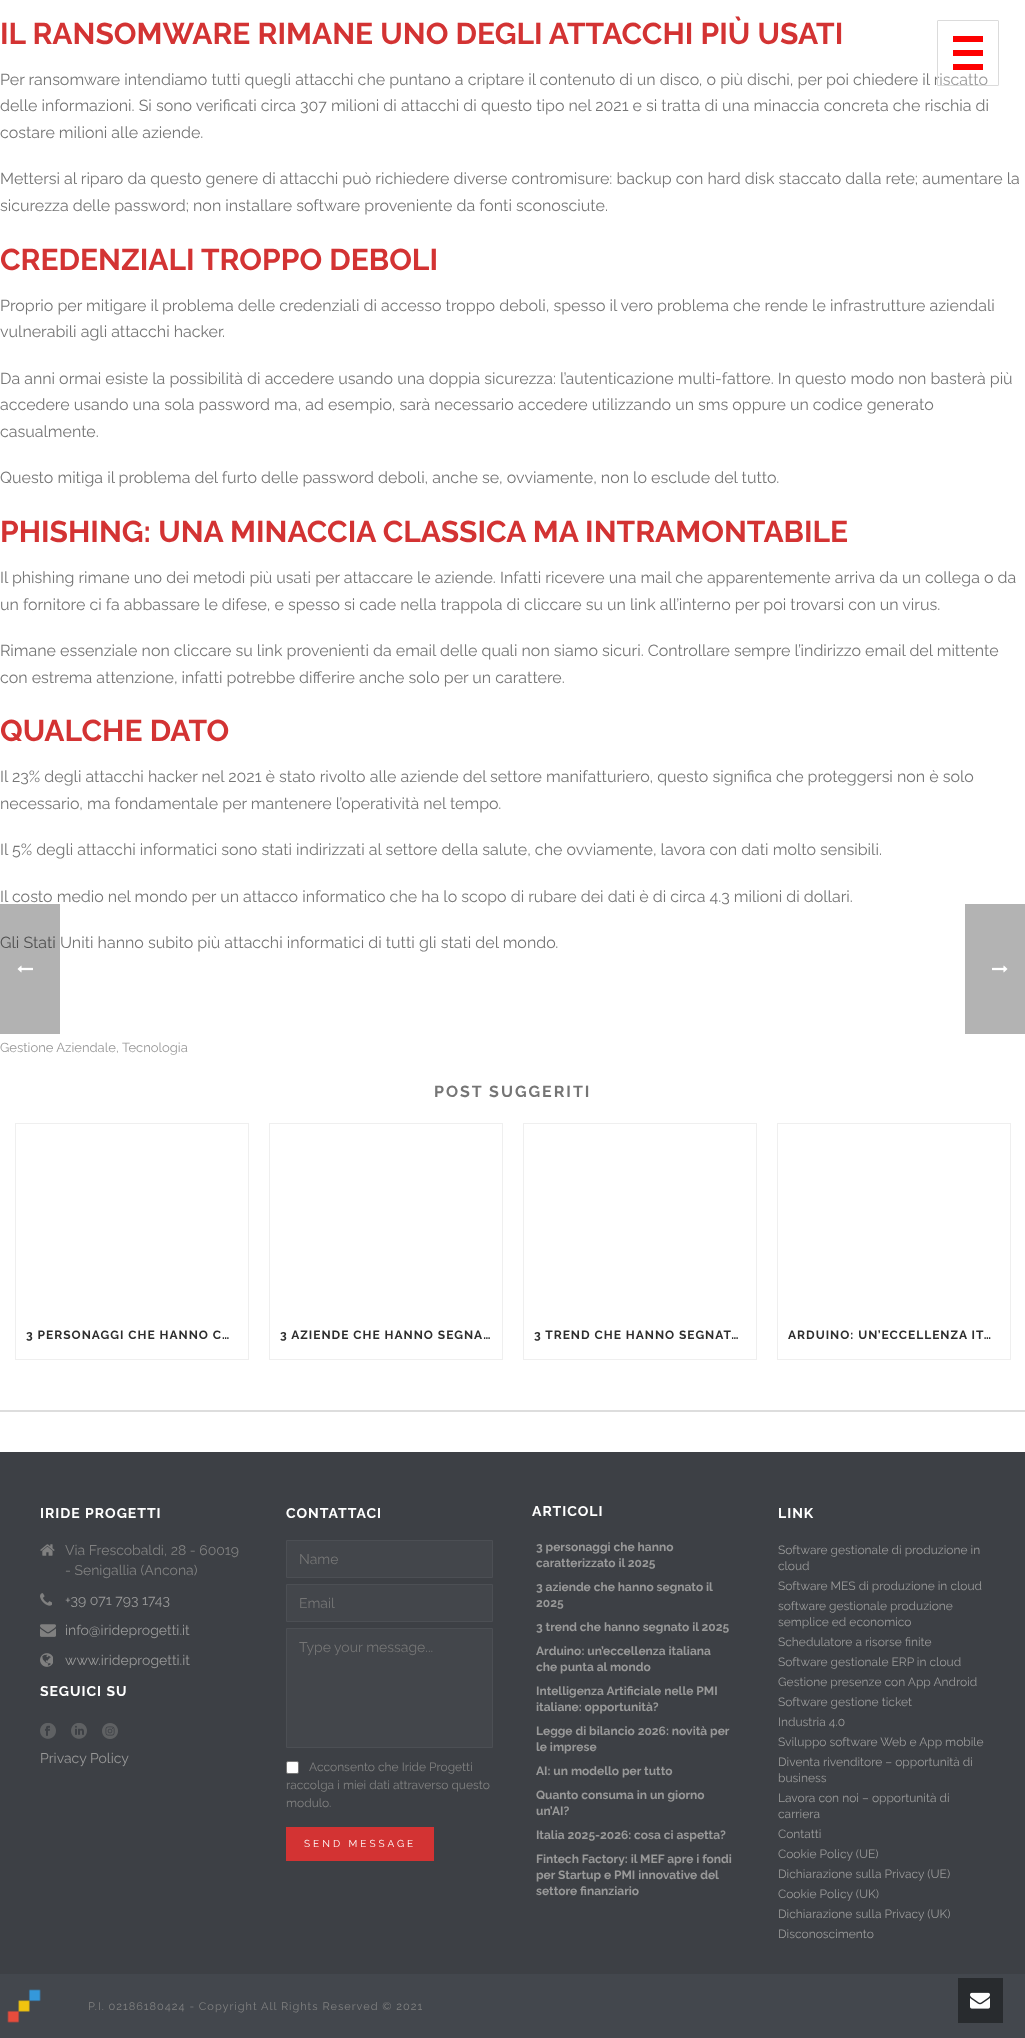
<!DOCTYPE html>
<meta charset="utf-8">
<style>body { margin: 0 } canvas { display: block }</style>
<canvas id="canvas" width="1025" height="2038"></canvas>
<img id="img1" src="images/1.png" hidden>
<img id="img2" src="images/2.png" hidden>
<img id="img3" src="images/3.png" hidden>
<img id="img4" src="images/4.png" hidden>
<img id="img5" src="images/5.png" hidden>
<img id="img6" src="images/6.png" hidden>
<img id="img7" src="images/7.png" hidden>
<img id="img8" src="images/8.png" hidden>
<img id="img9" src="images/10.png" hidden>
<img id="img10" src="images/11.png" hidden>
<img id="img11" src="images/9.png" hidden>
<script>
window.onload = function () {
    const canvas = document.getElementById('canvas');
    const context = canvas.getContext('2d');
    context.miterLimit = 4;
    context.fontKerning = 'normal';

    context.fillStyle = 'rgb(255, 255, 255)';
    context.fillRect(0, 0, 1025, 2038);
    context.fillStyle = 'rgb(221, 221, 221)';
    context.fillRect(0, 1410, 1025, 2);
    context.strokeStyle = 'rgb(239, 239, 239)';
    context.strokeRect(15.5, 1123.5, 233, 236);
    context.strokeRect(269.5, 1123.5, 233, 236);
    context.strokeRect(523.5, 1123.5, 233, 236);
    context.strokeRect(777.5, 1123.5, 233, 236);
    context.fillStyle = 'rgb(61, 64, 69)';
    context.fillRect(0, 1452, 1025, 522);
    context.drawImage(document.getElementById('img1'), 40, 1544, 15, 12);
    context.drawImage(document.getElementById('img2'), 40, 1593, 12, 13);
    context.drawImage(document.getElementById('img3'), 40, 1624, 16, 13);
    context.drawImage(document.getElementById('img4'), 40, 1653, 13, 14);
    context.drawImage(document.getElementById('img5'), 40, 1723, 16, 16);
    context.drawImage(document.getElementById('img6'), 71, 1723, 16, 16);
    context.drawImage(document.getElementById('img7'), 102, 1723, 16, 16);
    context.fillStyle = 'rgb(67, 70, 75)';
    context.beginPath();
    context.rect(286.5, 1540.5, 206, 37);
    context.fill();
    context.strokeStyle = 'rgb(76, 79, 84)';
    context.stroke();
    context.beginPath();
    context.rect(286.5, 1584.5, 206, 37);
    context.fill();
    context.stroke();
    context.beginPath();
    context.rect(286.5, 1628.5, 206, 119);
    context.fill();
    context.stroke();
    context.fillStyle = 'rgb(255, 255, 255)';
    context.beginPath();
    context.roundRect(286.5, 1761.5, 12, 12, 1.5);
    context.fill();
    context.strokeStyle = 'rgb(118, 118, 118)';
    context.stroke();
    context.fillStyle = 'rgb(211, 51, 51)';
    context.fillRect(286, 1827, 148, 34);
    context.fillStyle = 'rgb(67, 71, 77)';
    context.fillRect(0, 1974, 1025, 64);
    context.drawImage(document.getElementById('img8'), 7, 1989, 34, 34);
    context.fillStyle = 'rgb(179, 179, 179)';
    context.fillRect(965, 904, 60, 130);
    context.drawImage(document.getElementById('img9'), 992, 965, 16, 8);
    context.fillStyle = 'rgb(40, 43, 46)';
    context.fillRect(958, 1978, 45, 45);
    context.drawImage(document.getElementById('img10'), 970, 1992, 20, 17);
    context.font = 'bold 30px Raleway';
    context.fillStyle = 'rgb(211, 51, 51)';
    context.fillText('IL RANSOMWARE RIMANE UNO DEGLI ATTACCHI PIÙ USATI', 0, 44);
    context.font = '16px Raleway';
    context.fillStyle = 'rgb(117, 117, 117)';
    context.fillText('Per ransomware intendiamo tutti quegli attacchi che puntano a criptare il contenuto di un disco, o più dischi, per poi chiedere il riscatto', 0, 85);
    context.fillText('delle informazioni. Si sono verificati circa 307 milioni di attacchi di questo tipo nel 2021 e si tratta di una minaccia concreta che rischia di', 0, 111);
    context.fillText('costare milioni alle aziende.', 0, 138);
    context.fillText('Mettersi al riparo da questo genere di attacchi può richiedere diverse contromisure: backup con hard disk staccato dalla rete; aumentare la', 0, 184);
    context.fillText('sicurezza delle password; non installare software proveniente da fonti sconosciute.', 0, 211);
    context.font = 'bold 30px Raleway';
    context.fillStyle = 'rgb(211, 51, 51)';
    context.fillText('CREDENZIALI TROPPO DEBOLI', 0, 270);
    context.font = '16px Raleway';
    context.fillStyle = 'rgb(117, 117, 117)';
    context.fillText('Proprio per mitigare il problema delle credenziali di accesso troppo deboli, spesso il vero problema che rende le infrastrutture aziendali', 0, 311);
    context.fillText('vulnerabili agli attacchi hacker.', 0, 337);
    context.fillText('Da anni ormai esiste la possibilità di accedere usando una doppia sicurezza: l’autenticazione multi-fattore. In questo modo non basterà più', 0, 384);
    context.fillText('accedere usando una sola password ma, ad esempio, sarà necessario accedere utilizzando un sms oppure un codice generato', 0, 410);
    context.fillText('casualmente.', 0, 437);
    context.fillText('Questo mitiga il problema del furto delle password deboli, anche se, ovviamente, non lo esclude del tutto.', 0, 483);
    context.font = 'bold 30px Raleway';
    context.fillStyle = 'rgb(211, 51, 51)';
    context.fillText('PHISHING: UNA MINACCIA CLASSICA MA INTRAMONTABILE', 0, 542);
    context.font = '16px Raleway';
    context.fillStyle = 'rgb(117, 117, 117)';
    context.fillText('Il phishing rimane uno dei metodi più usati per attaccare le aziende. Infatti ricevere una mail che apparentemente arriva da un collega o da', 0, 583);
    context.fillText('un fornitore ci fa abbassare le difese, e spesso si cade nella trappola di cliccare su un link all’interno per poi trovarsi con un virus.', 0, 610);
    context.fillText('Rimane essenziale non cliccare su link provenienti da email delle quali non siamo sicuri. Controllare sempre l’indirizzo email del mittente', 0, 656);
    context.fillText('con estrema attenzione, infatti potrebbe differire anche solo per un carattere.', 0, 683);
    context.font = 'bold 30px Raleway';
    context.fillStyle = 'rgb(211, 51, 51)';
    context.fillText('QUALCHE DATO', 0, 741);
    context.font = '16px Raleway';
    context.fillStyle = 'rgb(117, 117, 117)';
    context.fillText('Il 23% degli attacchi hacker nel 2021 è stato rivolto alle aziende del settore manifatturiero, questo significa che proteggersi non è solo', 0, 782);
    context.fillText('necessario, ma fondamentale per mantenere l’operatività nel tempo.', 0, 809);
    context.fillText('Il 5% degli attacchi informatici sono stati indirizzati al settore della salute, che ovviamente, lavora con dati molto sensibili.', 0, 855);
    context.fillText('Il costo medio nel mondo per un attacco informatico che ha lo scopo di rubare dei dati è di circa 4.3 milioni di dollari.', 0, 902);
    context.fillText('Gli Stati Uniti hanno subito più attacchi informatici di tutti gli stati del mondo.', 0, 948);
    context.font = '13px Raleway';
    context.fillStyle = 'rgb(153, 153, 153)';
    context.fillText('Gestione Aziendale', 0, 1052);
    context.font = '12px Raleway';
    context.fillText(',', 116, 1052);
    context.font = '13px Raleway';
    context.fillText('Tecnologia', 122, 1052);
    context.letterSpacing = '2px';
    context.font = 'bold 16px Raleway';
    context.fillStyle = 'rgb(117, 117, 117)';
    context.fillText('POST SUGGERITI', 434, 1097);
    context.letterSpacing = '1px';
    context.font = 'bold 12px Raleway';
    context.fillStyle = 'rgb(46, 46, 46)';
    context.fillText('3 PERSONAGGI CHE HANNO C…', 26, 1339);
    context.fillText('3 AZIENDE CHE HANNO SEGNA…', 280, 1339);
    context.fillText('3 TREND CHE HANNO SEGNAT…', 534, 1339);
    context.fillText('ARDUINO: UN’ECCELLENZA IT…', 788, 1339);
    context.fillStyle = 'rgba(255, 255, 255, 0.25)';
    context.fillRect(937, 73, 51, 13);
    context.beginPath();
    context.roundRect(937.5, 20.5, 61, 65, 0.5);
    context.strokeStyle = 'rgb(219, 219, 219)';
    context.stroke();
    context.fillStyle = 'rgb(254, 0, 0)';
    context.fillRect(953, 50, 30, 6);
    context.fillRect(953, 36, 30, 6);
    context.fillRect(953, 64, 30, 6);
    context.font = 'bold 14px Raleway';
    context.fillStyle = 'rgb(255, 255, 255)';
    context.fillText('IRIDE PROGETTI', 40, 1518);
    context.letterSpacing = '0px';
    context.font = '14px Raleway';
    context.fillStyle = 'rgb(128, 128, 128)';
    context.fillText('Via Frescobaldi, 28 - 60019', 65, 1555);
    context.fillText('- Senigallia (Ancona)', 65, 1575);
    context.fillStyle = 'rgb(153, 153, 153)';
    context.fillText('+39 071 793 1743', 65, 1605);
    context.fillText('info@irideprogetti.it', 65, 1635);
    context.fillText('www.irideprogetti.it', 65, 1665);
    context.letterSpacing = '1px';
    context.font = 'bold 14px Raleway';
    context.fillStyle = 'rgb(255, 255, 255)';
    context.fillText('SEGUICI SU', 40, 1696);
    context.letterSpacing = '0px';
    context.font = '14px Raleway';
    context.fillStyle = 'rgb(153, 153, 153)';
    context.fillText('Privacy Policy', 40, 1763);
    context.letterSpacing = '1px';
    context.font = 'bold 14px Raleway';
    context.fillStyle = 'rgb(255, 255, 255)';
    context.fillText('CONTATTACI', 286, 1518);
    context.letterSpacing = '0px';
    context.font = '14px Raleway';
    context.fillStyle = 'rgb(117, 117, 117)';
    context.fillText('Name', 299, 1564);
    context.fillText('Email', 299, 1608);
    context.fillText('Type your message...', 299, 1652);
    context.font = '12px Raleway';
    context.fillStyle = 'rgb(128, 128, 128)';
    context.fillText('Acconsento che Iride Progetti', 309, 1771);
    context.fillText('raccolga i miei dati attraverso questo', 286, 1789);
    context.fillText('modulo.', 286, 1807);
    context.letterSpacing = '3px';
    context.font = '10px Raleway';
    context.fillStyle = 'rgb(255, 255, 255)';
    context.fillText('SEND MESSAGE', 304, 1847);
    context.letterSpacing = '1px';
    context.font = 'bold 14px Raleway';
    context.fillText('ARTICOLI', 532, 1516);
    context.letterSpacing = '0px';
    context.font = 'bold 12px Raleway';
    context.fillStyle = 'rgb(153, 153, 153)';
    context.fillText('3 personaggi che hanno', 536, 1551);
    context.fillText('caratterizzato il 2025', 536, 1567);
    context.fillText('3 aziende che hanno segnato il', 536, 1591);
    context.fillText('2025', 536, 1607);
    context.fillText('3 trend che hanno segnato il 2025', 536, 1631);
    context.fillText('Arduino: un’eccellenza italiana', 536, 1655);
    context.fillText('che punta al mondo', 536, 1671);
    context.fillText('Intelligenza Artificiale nelle PMI', 536, 1695);
    context.fillText('italiane: opportunità?', 536, 1711);
    context.fillText('Legge di bilancio 2026: novità per', 536, 1735);
    context.fillText('le imprese', 536, 1751);
    context.fillText('AI: un modello per tutto', 536, 1775);
    context.fillText('Quanto consuma in un giorno', 536, 1799);
    context.fillText('un’AI?', 536, 1815);
    context.fillText('Italia 2025-2026: cosa ci aspetta?', 536, 1839);
    context.fillText('Fintech Factory: il MEF apre i fondi', 536, 1863);
    context.fillText('per Startup e PMI innovative del', 536, 1879);
    context.fillText('settore finanziario', 536, 1895);
    context.letterSpacing = '1px';
    context.font = 'bold 14px Raleway';
    context.fillStyle = 'rgb(255, 255, 255)';
    context.fillText('LINK', 778, 1518);
    context.letterSpacing = '0px';
    context.font = '12px Raleway';
    context.fillStyle = 'rgb(153, 153, 153)';
    context.fillText('Software gestionale di produzione in', 778, 1554);
    context.fillText('cloud', 778, 1570);
    context.fillText('Software MES di produzione in cloud', 778, 1590);
    context.fillText('software gestionale produzione', 778, 1610);
    context.fillText('semplice ed economico', 778, 1626);
    context.fillText('Schedulatore a risorse finite', 778, 1646);
    context.fillText('Software gestionale ERP in cloud', 778, 1666);
    context.fillText('Gestione presenze con App Android', 778, 1686);
    context.fillText('Software gestione ticket', 778, 1706);
    context.fillText('Industria 4.0', 778, 1726);
    context.fillText('Sviluppo software Web e App mobile', 778, 1746);
    context.fillText('Diventa rivenditore – opportunità di', 778, 1766);
    context.fillText('business', 778, 1782);
    context.fillText('Lavora con noi – opportunità di', 778, 1802);
    context.fillText('carriera', 778, 1818);
    context.fillText('Contatti', 778, 1838);
    context.fillText('Cookie Policy (UE)', 778, 1858);
    context.fillText('Dichiarazione sulla Privacy (UE)', 778, 1878);
    context.fillText('Cookie Policy (UK)', 778, 1898);
    context.fillText('Dichiarazione sulla Privacy (UK)', 778, 1918);
    context.fillText('Disconoscimento', 778, 1938);
    context.letterSpacing = '1px';
    context.font = '11px Raleway';
    context.fillStyle = 'rgb(128, 128, 128)';
    context.fillText('P.I. 02186180424 - Copyright All Rights Reserved © 2021', 88, 2010);
    context.fillStyle = 'rgba(0, 0, 0, 0.3)';
    context.fillRect(0, 904, 60, 130);
    context.drawImage(document.getElementById('img11'), 17, 965, 16, 8);
};
</script>
